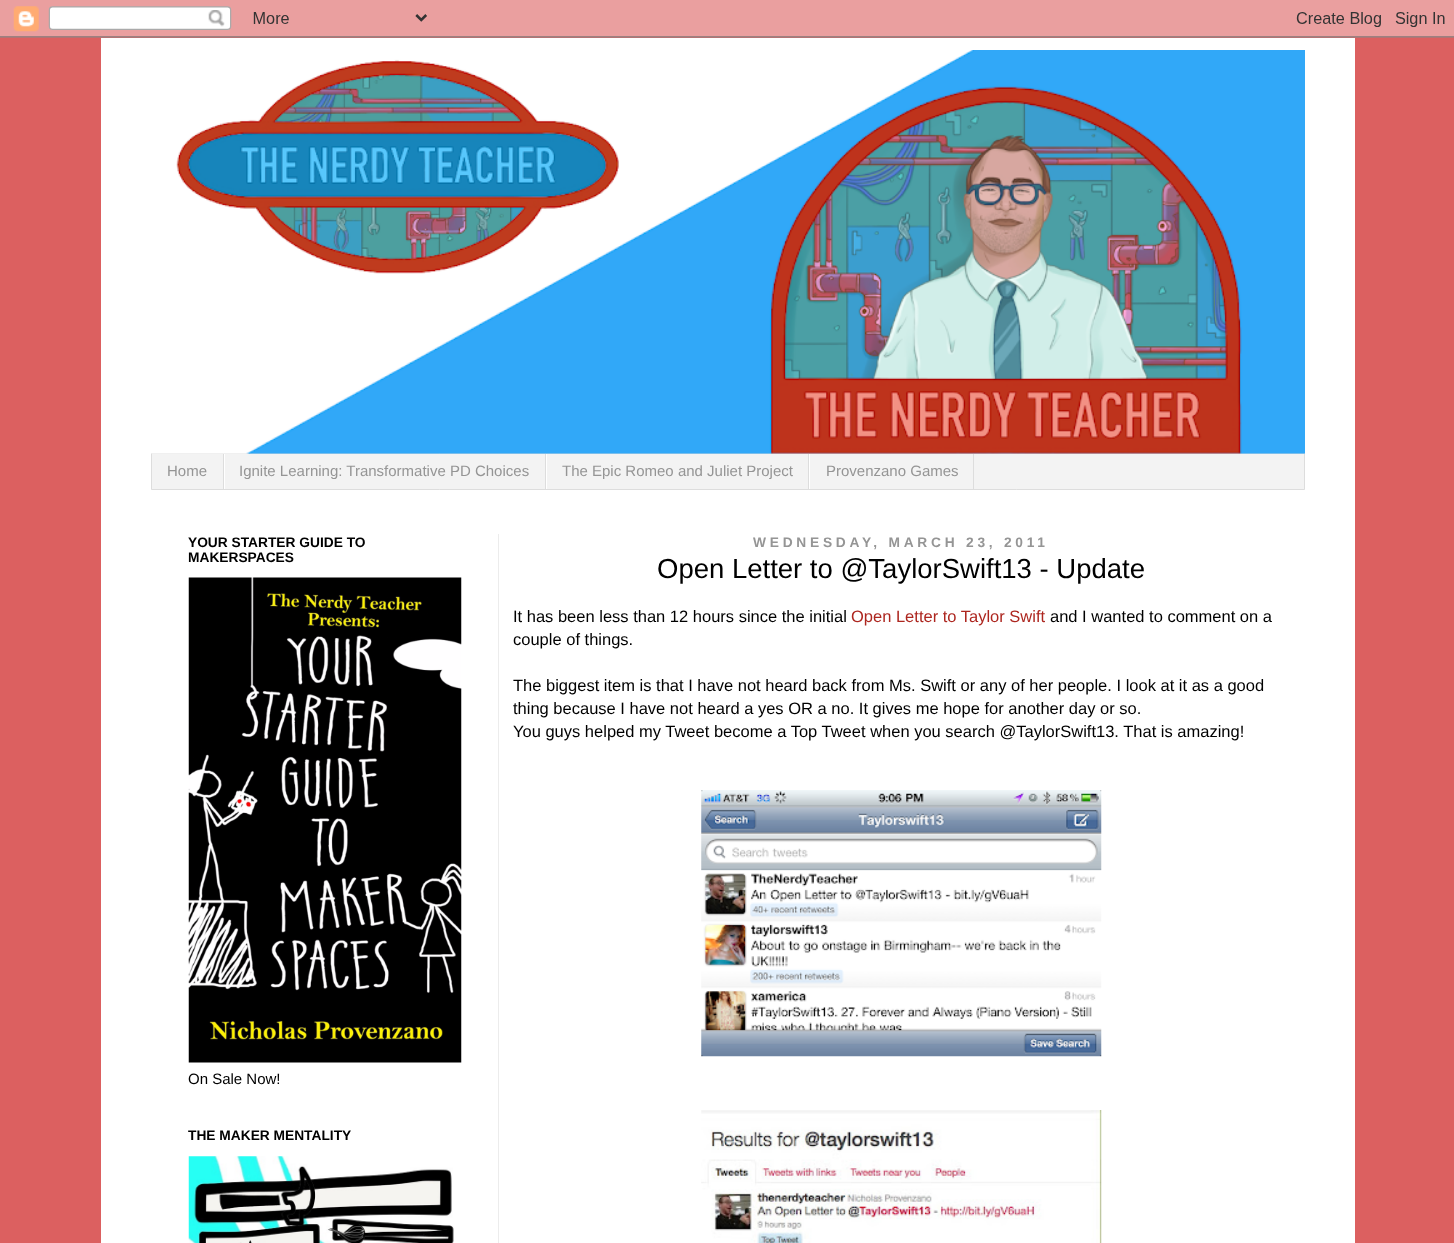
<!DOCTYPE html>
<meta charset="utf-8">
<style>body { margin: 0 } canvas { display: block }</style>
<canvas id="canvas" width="1454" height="1243"></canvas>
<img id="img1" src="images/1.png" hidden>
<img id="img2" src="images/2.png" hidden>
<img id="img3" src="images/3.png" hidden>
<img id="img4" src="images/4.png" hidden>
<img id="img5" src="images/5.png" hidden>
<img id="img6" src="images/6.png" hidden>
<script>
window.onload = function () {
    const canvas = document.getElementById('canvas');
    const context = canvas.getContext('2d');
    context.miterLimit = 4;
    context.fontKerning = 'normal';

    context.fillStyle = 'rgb(220, 96, 96)';
    context.fillRect(0, 0, 1454, 1243);
    context.drawImage(document.getElementById('img1'), 0, 0, 1454, 38);
    context.fillStyle = 'rgb(255, 255, 255)';
    context.fillRect(101, 38, 1254, 1205);
    context.fillStyle = 'rgb(243, 243, 243)';
    context.beginPath();
    context.rect(151.5, 453.5, 1153, 36);
    context.fill();
    context.strokeStyle = 'rgb(221, 221, 221)';
    context.stroke();
    context.drawImage(document.getElementById('img2'), 151, 50, 1154, 404);
    context.fillStyle = 'rgb(221, 221, 221)';
    context.fillRect(223, 454, 1, 35);
    context.fillRect(545, 454, 1, 35);
    context.fillStyle = 'rgb(255, 255, 255)';
    context.fillRect(224, 454, 1, 35);
    context.fillStyle = 'rgb(221, 221, 221)';
    context.fillRect(808, 454, 1, 35);
    context.fillStyle = 'rgb(255, 255, 255)';
    context.fillRect(546, 454, 1, 35);
    context.fillStyle = 'rgb(221, 221, 221)';
    context.fillRect(973, 454, 1, 35);
    context.fillStyle = 'rgb(255, 255, 255)';
    context.fillRect(809, 454, 1, 35);
    context.fillStyle = 'rgb(236, 236, 236)';
    context.fillRect(498, 534, 1, 709);
    context.drawImage(document.getElementById('img3'), 188, 577, 274, 486);
    context.drawImage(document.getElementById('img4'), 188, 1156, 266, 87);
    context.drawImage(document.getElementById('img5'), 701, 790, 401, 267);
    context.drawImage(document.getElementById('img6'), 701, 1110, 401, 133);
    context.font = '15px Liberation Sans';
    context.fillStyle = 'rgb(149, 149, 149)';
    context.fillText('Home', 167, 476);
    context.fillText('Ignite Learning: Transformative PD Choices', 239, 476);
    context.fillText('The Epic Romeo and Juliet Project', 562, 476);
    context.fillText('Provenzano Games', 826, 476);
    context.font = 'bold 13.75px Liberation Sans';
    context.fillStyle = 'rgb(0, 0, 0)';
    context.fillText('YOUR STARTER GUIDE TO', 188, 547);
    context.fillText('MAKERSPACES', 188, 562);
    context.font = '15px Liberation Sans';
    context.fillText('On Sale Now!', 188, 1084);
    context.font = 'bold 13.75px Liberation Sans';
    context.fillText('THE MAKER MENTALITY', 188, 1140);
    context.letterSpacing = '3.75px';
    context.fillStyle = 'rgb(149, 149, 149)';
    context.fillText('WEDNESDAY, MARCH 23, 2011', 753, 547);
    context.letterSpacing = '0px';
    context.font = '27.5px Liberation Sans';
    context.fillStyle = 'rgb(0, 0, 0)';
    context.fillText('Open Letter to @TaylorSwift13 - Update', 657, 578);
    context.font = '16.5px Liberation Sans';
    context.fillText('It has been less than 12 hours since the initial', 513, 622);
    context.fillStyle = 'rgb(173, 38, 31)';
    context.fillText('Open Letter to Taylor Swift', 851, 622);
    context.fillStyle = 'rgb(0, 0, 0)';
    context.fillText('and I wanted to comment on a', 1050, 622);
    context.fillText('couple of things.', 513, 645);
    context.fillText('The biggest item is that I have not heard back from Ms. Swift or any of her people. I look at it as a good', 513, 691);
    context.fillText('thing because I have not heard a yes OR a no. It gives me hope for another day or so.', 513, 714);
    context.fillText('You guys helped my Tweet become a Top Tweet when you search @TaylorSwift13. That is amazing!', 513, 737);
};
</script>
